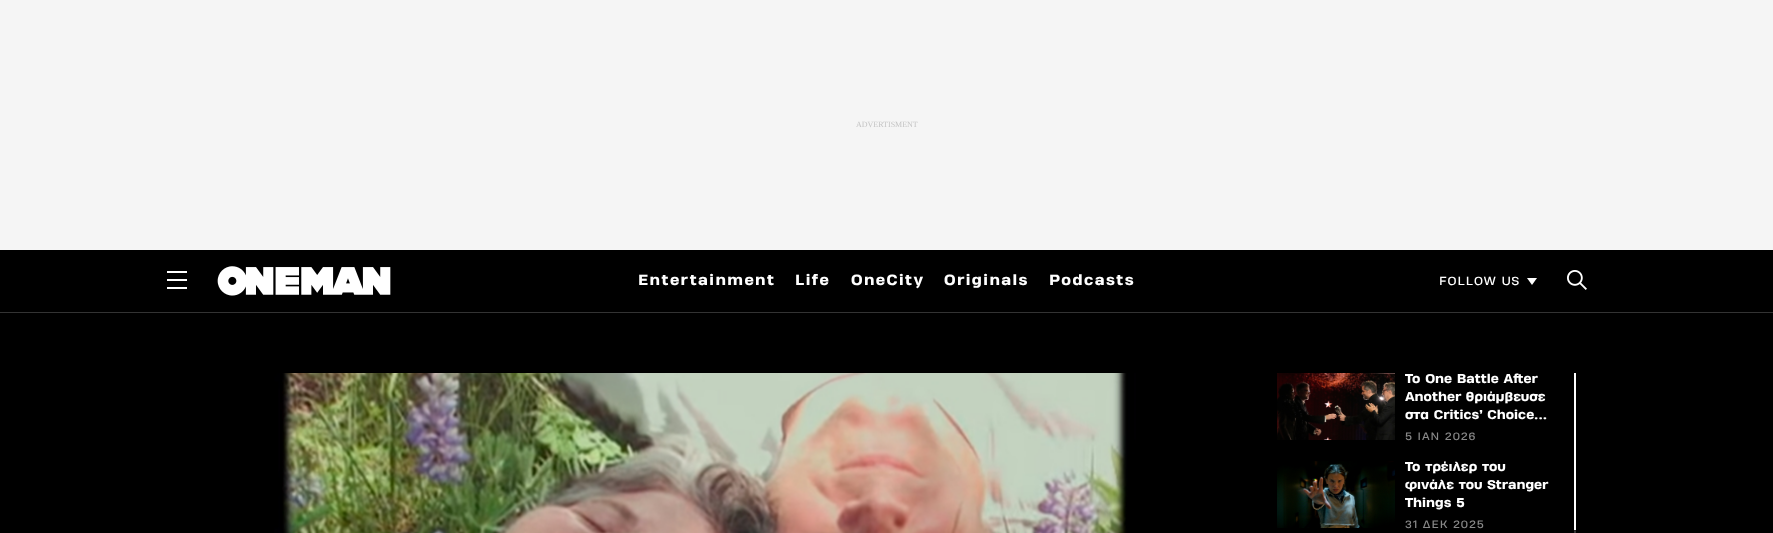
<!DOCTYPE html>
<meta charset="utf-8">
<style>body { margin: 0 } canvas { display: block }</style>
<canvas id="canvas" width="1773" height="533"></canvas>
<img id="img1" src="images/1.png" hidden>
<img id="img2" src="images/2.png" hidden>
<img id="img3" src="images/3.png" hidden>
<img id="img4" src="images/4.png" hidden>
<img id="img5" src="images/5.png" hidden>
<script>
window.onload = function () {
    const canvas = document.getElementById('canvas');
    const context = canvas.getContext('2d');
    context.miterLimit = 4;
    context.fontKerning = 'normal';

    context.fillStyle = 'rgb(245, 245, 245)';
    context.fillRect(0, 0, 1773, 533);
    context.fillStyle = 'rgb(0, 0, 0)';
    context.fillRect(0, 250, 1773, 62);
    context.fillStyle = 'rgb(51, 51, 51)';
    context.fillRect(0, 312, 1773, 1);
    context.fillStyle = 'rgb(255, 255, 255)';
    context.fillRect(167, 287, 20, 2);
    context.fillRect(167, 279, 20, 2);
    context.fillRect(167, 271, 20, 2);
    context.drawImage(document.getElementById('img1'), 217, 266, 174, 30);
    context.beginPath();
    context.moveTo(1527, 278);
    context.lineTo(1537, 278);
    context.lineTo(1532, 285);
    context.closePath();
    context.fill();
    context.drawImage(document.getElementById('img2'), 1567, 270, 20, 20);
    context.fillStyle = 'rgb(0, 0, 0)';
    context.fillRect(0, 313, 1773, 220);
    context.drawImage(document.getElementById('img3'), 167, 373, 1080, 160);
    context.drawImage(document.getElementById('img4'), 1277, 373, 118, 67);
    context.drawImage(document.getElementById('img5'), 1277, 461, 118, 67);
    context.fillStyle = 'rgb(255, 255, 255)';
    context.fillRect(1574, 373, 2, 157);
    context.fillStyle = 'rgb(51, 51, 51)';
    context.beginPath();
    context.roundRect(1574, 530, 2, 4, 1);
    context.fill();
    context.font = '8px Liberation Serif';
    context.fillStyle = 'rgb(196, 196, 196)';
    context.fillText('ADVERTISMENT', 856, 127);
    context.letterSpacing = '1.4px';
    context.font = '800 14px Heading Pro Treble';
    context.fillStyle = 'rgb(255, 255, 255)';
    context.fillText('Entertainment', 638, 285);
    context.fillText('Life', 795, 285);
    context.fillText('OneCity', 851, 285);
    context.fillText('Originals', 944, 285);
    context.fillText('Podcasts', 1049, 285);
    context.letterSpacing = '1px';
    context.font = '11px Heading Pro Treble';
    context.fillText('FOLLOW US', 1439, 285);
    context.letterSpacing = '0px';
    context.font = '800 12px Heading Pro Treble';
    context.fillText('Το One Battle After', 1405, 383);
    context.fillText('Another θριάμβευσε', 1405, 401);
    context.fillText('στα Critics’ Choice...', 1405, 419);
    context.letterSpacing = '1px';
    context.font = '10px Heading Pro Treble';
    context.fillStyle = 'rgb(136, 136, 136)';
    context.fillText('5 ΙΑΝ 2026', 1405, 440);
    context.letterSpacing = '0px';
    context.font = '800 12px Heading Pro Treble';
    context.fillStyle = 'rgb(255, 255, 255)';
    context.fillText('Το τρέιλερ του', 1405, 471);
    context.save();
    context.beginPath();
    context.rect(1405, 458, 152, 57);
    context.clip();
    context.fillText('φινάλε του Stranger', 1405, 489);
    context.restore();
    context.fillText('Things 5', 1405, 507);
    context.letterSpacing = '1px';
    context.font = '10px Heading Pro Treble';
    context.fillStyle = 'rgb(136, 136, 136)';
    context.fillText('31 ΔΕΚ 2025', 1405, 528);
};
</script>
